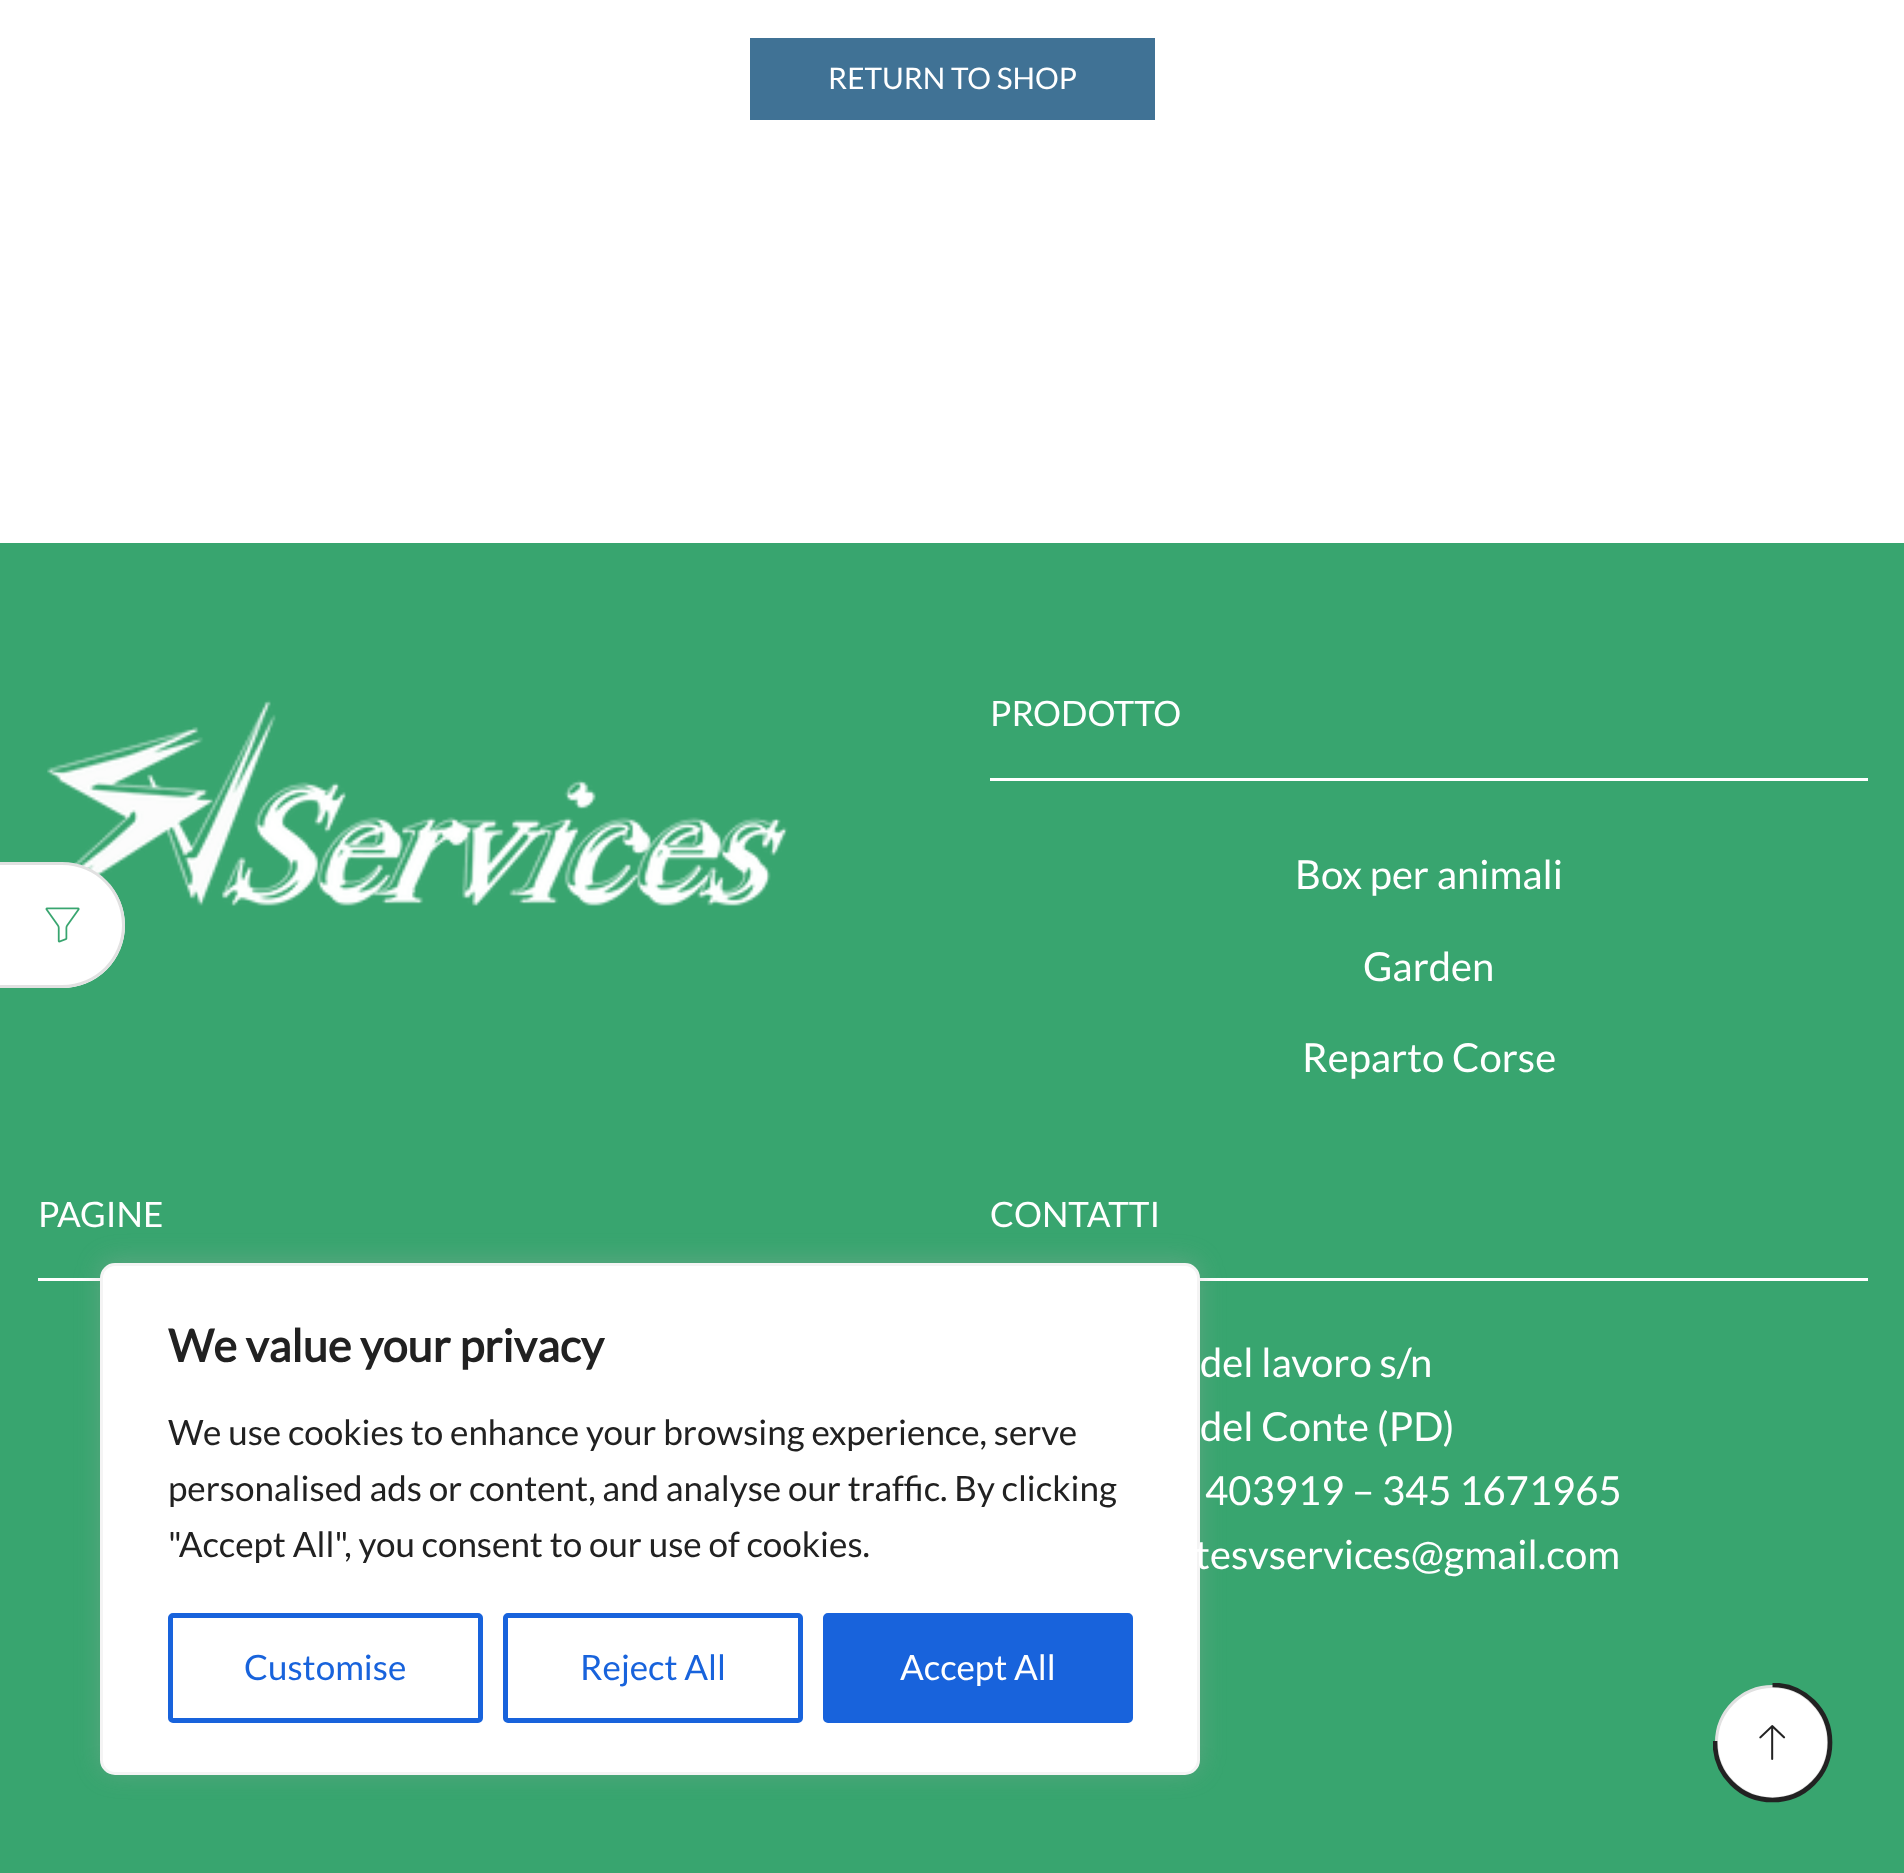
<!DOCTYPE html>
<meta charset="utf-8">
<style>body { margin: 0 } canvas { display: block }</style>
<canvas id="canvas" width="1904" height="1873"></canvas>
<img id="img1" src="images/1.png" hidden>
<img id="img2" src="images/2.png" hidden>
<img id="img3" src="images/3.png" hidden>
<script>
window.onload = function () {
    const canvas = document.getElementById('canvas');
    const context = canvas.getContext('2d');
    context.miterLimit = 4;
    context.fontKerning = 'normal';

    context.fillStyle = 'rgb(255, 255, 255)';
    context.fillRect(0, 0, 1904, 1873);
    context.fillStyle = 'rgb(64, 114, 149)';
    context.fillRect(750, 38, 405, 82);
    context.fillStyle = 'rgb(56, 165, 111)';
    context.fillRect(0, 543, 1904, 1330);
    context.drawImage(document.getElementById('img1'), 47, 700, 741, 206);
    context.fillStyle = 'rgb(255, 255, 255)';
    context.fillRect(990, 778, 878, 3);
    context.fillRect(38, 1278, 62, 3);
    context.fillRect(1200, 1278, 668, 3);
    context.beginPath();
    context.arc(1772.5, 1742.5, 56, 0, 2 * Math.PI);
    context.fill();
    context.strokeStyle = 'rgb(225, 225, 225)';
    context.lineWidth = 3;
    context.stroke();
    context.save();
    context.beginPath();
    context.rect(1713, 1683, 120, 120);
    context.clip();
    context.beginPath();
    context.moveTo(1772.5, 1685);
    context.bezierCurveTo(1804.5, 1685, 1830, 1710.5, 1830, 1742.5);
    context.bezierCurveTo(1830, 1774.5, 1804.5, 1800, 1772.5, 1800);
    context.bezierCurveTo(1740.5, 1800, 1715, 1774.5, 1715, 1742.5);
    context.lineTo(1715, 1741);
    context.strokeStyle = 'rgb(34, 34, 34)';
    context.lineWidth = 4.7;
    context.stroke();
    context.restore();
    context.drawImage(document.getElementById('img2'), 1759, 1725, 27, 35);
    context.beginPath();
    context.roundRect(0, 863, 125, 125, [0, 62.5, 62.5, 0]);
    context.fill();
    context.fillStyle = 'rgb(225, 225, 225)';
    context.beginPath();
    context.moveTo(0, 862);
    context.lineTo(62, 862);
    context.bezierCurveTo(97, 862, 125, 890, 125, 925);
    context.bezierCurveTo(125, 960, 97, 988, 62, 988);
    context.lineTo(0, 988);
    context.closePath();
    context.moveTo(0, 865);
    context.lineTo(62, 865);
    context.bezierCurveTo(96, 865, 122, 892, 122, 925);
    context.bezierCurveTo(122, 958, 96, 985, 62, 985);
    context.lineTo(0, 985);
    context.closePath();
    context.fill('evenodd');
    context.drawImage(document.getElementById('img3'), 45, 907, 35, 36);
    context.fillStyle = 'rgba(172, 171, 171, 0.3)';
    context.filter = 'blur(12.5px)';
    context.beginPath();
    context.roundRect(100, 1260, 1100, 513, 15);
    context.fill();
    context.filter = 'none';
    context.fillStyle = 'rgb(255, 255, 255)';
    context.beginPath();
    context.roundRect(101.5, 1264.5, 1097, 509, 13.5);
    context.fill();
    context.strokeStyle = 'rgb(244, 244, 244)';
    context.stroke();
    context.beginPath();
    context.roundRect(170.5, 1615.5, 310, 105, 2.5);
    context.strokeStyle = 'rgb(24, 99, 220)';
    context.lineWidth = 5;
    context.stroke();
    context.beginPath();
    context.roundRect(505.5, 1615.5, 295, 105, 2.5);
    context.stroke();
    context.fillStyle = 'rgb(24, 99, 220)';
    context.beginPath();
    context.roundRect(825.5, 1615.5, 305, 105, 2.5);
    context.fill();
    context.stroke();
    context.font = '29.75px Lato';
    context.fillStyle = 'rgb(255, 255, 255)';
    context.fillText('RETURN TO SHOP', 828, 89);
    context.font = '35px Lato';
    context.fillText('PRODOTTO', 990, 726);
    context.font = '40px Lato';
    context.fillText('Box per animali', 1295, 889);
    context.fillText('Garden', 1363, 981);
    context.fillText('Reparto Corse', 1302, 1072);
    context.font = '35px Lato';
    context.fillText('PAGINE', 38, 1227);
    context.fillText('CONTATTI', 990, 1227);
    context.font = '40px Lato';
    context.fillText('del lavoro s/n', 1200, 1377);
    context.fillText('del Conte (PD)', 1200, 1441);
    context.fillText('403919 – 345 1671965', 1205, 1505);
    context.fillText('tesvservices@gmail.com', 1195, 1569);
    context.font = 'bold 45px Lato';
    context.fillStyle = 'rgb(33, 33, 33)';
    context.fillText('We value your privacy', 168, 1362);
    context.font = '35px Lato';
    context.fillText('We use cookies to enhance your browsing experience, serve', 168, 1445);
    context.fillText('personalised ads or content, and analyse our traffic. By clicking', 168, 1501);
    context.fillText('"Accept All", you consent to our use of cookies.', 168, 1557);
    context.fillStyle = 'rgb(24, 99, 220)';
    context.fillText('Customise', 244, 1680);
    context.fillText('Reject All', 580, 1680);
    context.fillStyle = 'rgb(255, 255, 255)';
    context.fillText('Accept All', 900, 1680);
};
</script>
